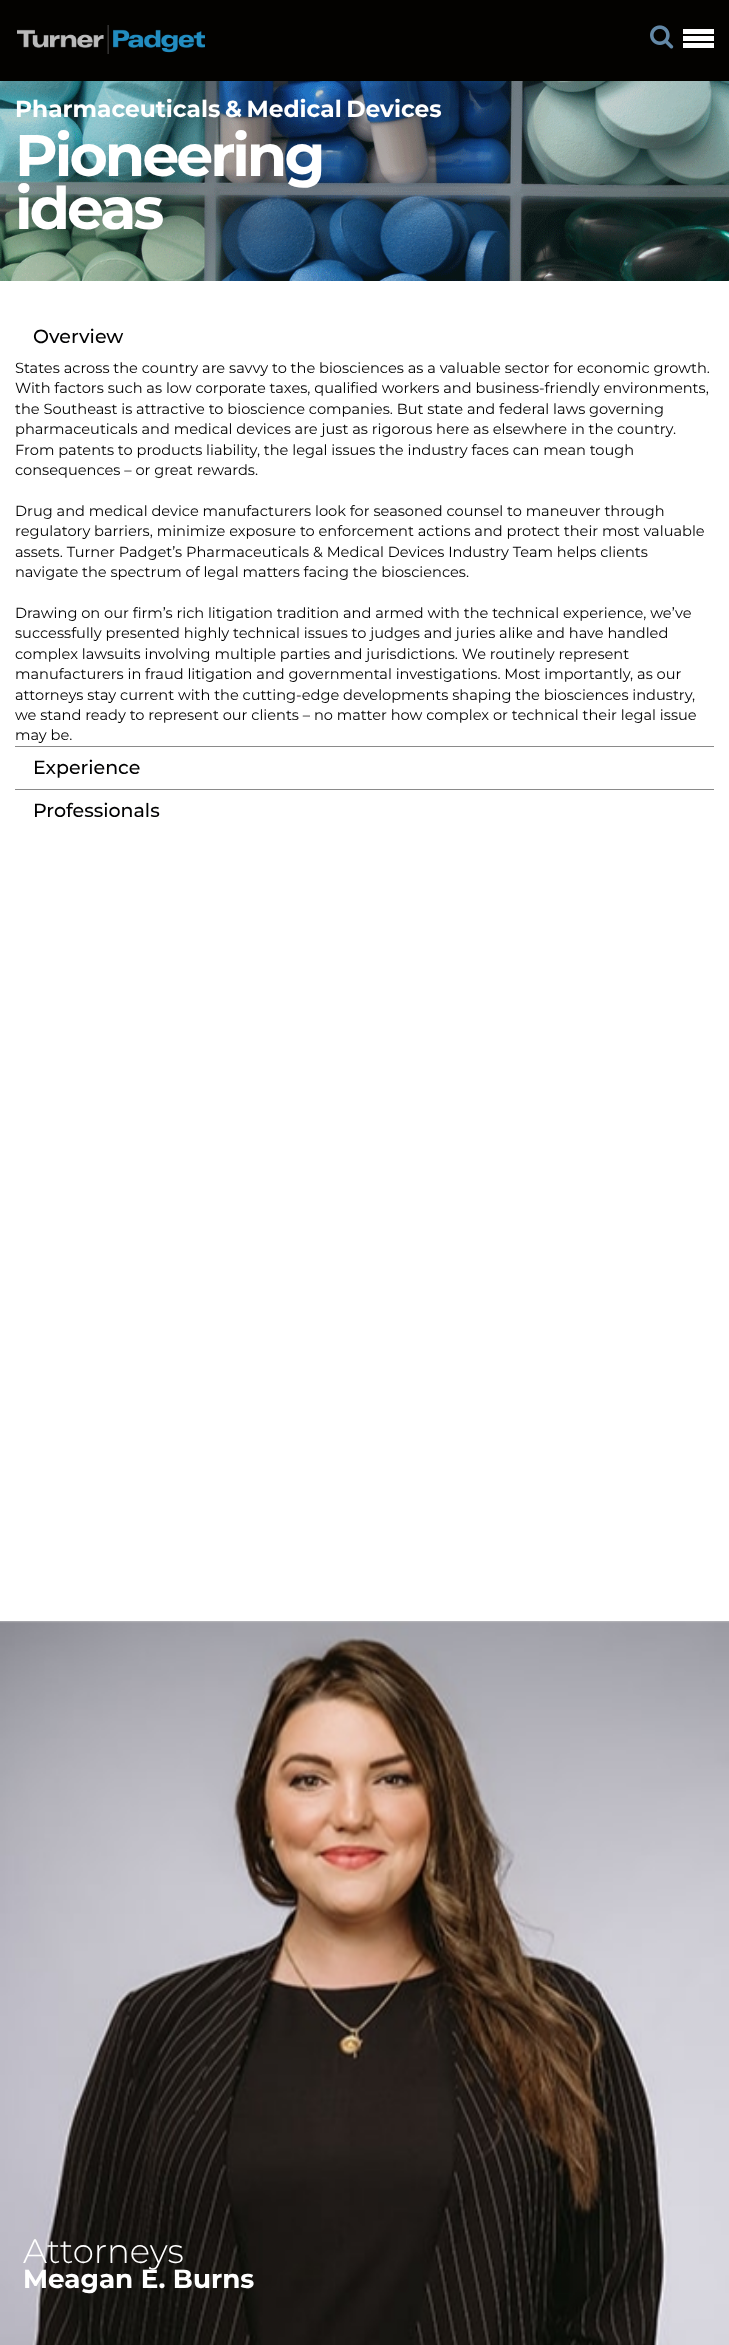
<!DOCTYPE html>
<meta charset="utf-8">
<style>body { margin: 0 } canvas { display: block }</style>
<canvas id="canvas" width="729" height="2345"></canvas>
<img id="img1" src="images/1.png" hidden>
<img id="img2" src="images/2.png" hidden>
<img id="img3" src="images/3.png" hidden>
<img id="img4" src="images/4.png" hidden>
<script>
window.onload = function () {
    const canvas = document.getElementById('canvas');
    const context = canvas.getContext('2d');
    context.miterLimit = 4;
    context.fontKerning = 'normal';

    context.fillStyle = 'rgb(255, 255, 255)';
    context.fillRect(0, 0, 729, 2345);
    context.fillStyle = 'rgb(3, 2, 0)';
    context.fillRect(0, 0, 729, 81);
    context.drawImage(document.getElementById('img1'), 17, 25, 188, 29);
    context.drawImage(document.getElementById('img2'), 650, 25, 24, 24);
    context.fillStyle = 'rgb(255, 255, 255)';
    context.fillRect(683, 36, 31, 5);
    context.fillRect(683, 29, 31, 5);
    context.fillRect(683, 43, 31, 5);
    context.drawImage(document.getElementById('img3'), 0, 81, 729, 200);
    context.fillStyle = 'rgb(138, 138, 138)';
    context.fillRect(15, 746, 699, 1);
    context.fillRect(15, 789, 699, 1);
    context.fillStyle = 'rgb(204, 204, 204)';
    context.fillRect(0, 1621, 729, 2);
    context.drawImage(document.getElementById('img4'), 0, 1621, 729, 724);
    context.wordSpacing = '-2px';
    context.font = 'bold 23.3px Montserrat';
    context.fillStyle = 'rgb(255, 255, 255)';
    context.fillText('Pharmaceuticals & Medical Devices', 15, 117);
    context.letterSpacing = '-3px';
    context.wordSpacing = '0px';
    context.font = 'bold 58.5px Montserrat';
    context.fillText('Pioneering', 15, 176);
    context.fillText('ideas', 15, 229);
    context.letterSpacing = '0px';
    context.font = '500 19px Montserrat';
    context.fillStyle = 'rgb(0, 0, 1)';
    context.fillText('Overview', 33, 343);
    context.font = '14.6px Montserrat';
    context.fillText('States across the country are savvy to the biosciences as a valuable sector for economic growth.', 15, 373);
    context.fillText('With factors such as low corporate taxes, qualified workers and business-friendly environments,', 15, 393);
    context.fillText('the Southeast is attractive to bioscience companies. But state and federal laws governing', 15, 414);
    context.fillText('pharmaceuticals and medical devices are just as rigorous here as elsewhere in the country.', 15, 434);
    context.fillText('From patents to products liability, the legal issues the industry faces can mean tough', 15, 455);
    context.fillText('consequences – or great rewards.', 15, 475);
    context.fillText('Drug and medical device manufacturers look for seasoned counsel to maneuver through', 15, 516);
    context.fillText('regulatory barriers, minimize exposure to enforcement actions and protect their most valuable', 15, 536);
    context.fillText('assets. Turner Padget’s Pharmaceuticals & Medical Devices Industry Team helps clients', 15, 557);
    context.fillText('navigate the spectrum of legal matters facing the biosciences.', 15, 577);
    context.fillText('Drawing on our firm’s rich litigation tradition and armed with the technical experience, we’ve', 15, 618);
    context.fillText('successfully presented highly technical issues to judges and juries alike and have handled', 15, 638);
    context.fillText('complex lawsuits involving multiple parties and jurisdictions. We routinely represent', 15, 659);
    context.fillText('manufacturers in fraud litigation and governmental investigations. Most importantly, as our', 15, 679);
    context.fillText('attorneys stay current with the cutting-edge developments shaping the biosciences industry,', 15, 700);
    context.fillText('we stand ready to represent our clients – no matter how complex or technical their legal issue', 15, 720);
    context.fillText('may be.', 15, 740);
    context.font = '500 19px Montserrat';
    context.fillText('Experience', 33, 774);
    context.fillText('Professionals', 33, 817);
    context.font = '300 34px Montserrat';
    context.fillStyle = 'rgb(255, 255, 255)';
    context.fillText('Attorneys', 23, 2263);
    context.font = 'bold 26.25px Montserrat';
    context.fillText('Meagan E. Burns', 23, 2288);
};
</script>
